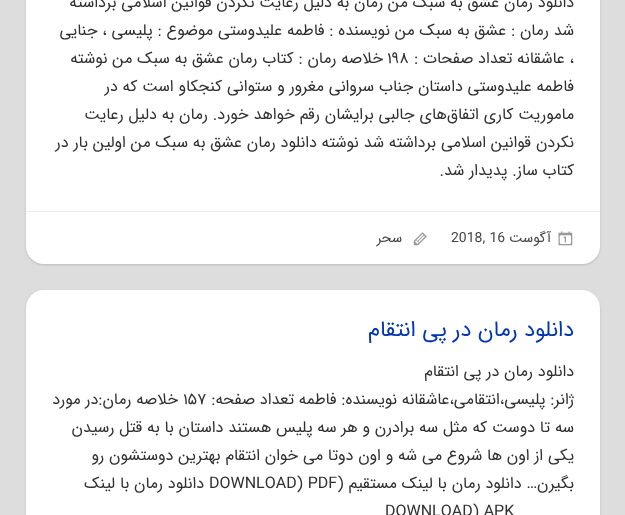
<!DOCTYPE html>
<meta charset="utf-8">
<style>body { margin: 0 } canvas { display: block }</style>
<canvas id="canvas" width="625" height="515"></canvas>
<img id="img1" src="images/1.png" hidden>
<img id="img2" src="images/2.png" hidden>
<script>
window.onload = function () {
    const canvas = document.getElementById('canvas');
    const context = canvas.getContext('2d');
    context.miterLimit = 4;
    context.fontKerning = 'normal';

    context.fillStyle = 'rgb(221, 221, 221)';
    context.fillRect(0, 0, 625, 515);
    context.fillStyle = 'rgb(187, 187, 187)';
    context.filter = 'blur(1px)';
    context.beginPath();
    context.roundRect(26, -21, 574, 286, 18);
    context.fill();
    context.filter = 'none';
    context.fillStyle = 'rgb(255, 255, 255)';
    context.beginPath();
    context.roundRect(26, -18, 574, 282, 18);
    context.fill();
    context.fillStyle = 'rgb(238, 238, 238)';
    context.fillRect(26, 211, 574, 1);
    context.drawImage(document.getElementById('img1'), 558, 231, 15, 15);
    context.drawImage(document.getElementById('img2'), 413, 232, 14, 14);
    context.fillStyle = 'rgb(187, 187, 187)';
    context.filter = 'blur(1px)';
    context.beginPath();
    context.roundRect(26, 291, 574, 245, 18);
    context.fill();
    context.filter = 'none';
    context.fillStyle = 'rgb(255, 255, 255)';
    context.beginPath();
    context.roundRect(26, 290, 574, 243, 18);
    context.fill();
    context.direction = 'rtl';
    context.font = '16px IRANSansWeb';
    context.fillStyle = 'rgb(48, 48, 48)';
    context.fillText('دانلود رمان عشق به سبک من رمان به دلیل رعایت نکردن قوانین اسلامی برداشته', 574, 7);
    context.fillText('شد رمان : عشق به سبک من نویسنده : فاطمه علیدوستی موضوع : پلیسی ، جنایی', 574, 35);
    context.fillText('، عاشقانه تعداد صفحات :', 574, 63);
    context.direction = 'ltr';
    context.fillText('۱۹۸', 387, 63);
    context.direction = 'rtl';
    context.fillText('خلاصه رمان : کتاب رمان عشق به سبک من نوشته', 383, 63);
    context.fillText('فاطمه علیدوستی داستان جناب سروانی مغرور و ستوانی کنجکاو است که در', 574, 91);
    context.fillText('ماموریت کاری اتفاق‌های جالبی برایشان رقم خواهد خورد. رمان به دلیل رعایت', 574, 119);
    context.fillText('نکردن قوانین اسلامی برداشته شد نوشته دانلود رمان عشق به سبک من اولین بار در', 574, 147);
    context.fillText('کتاب ساز. پدیدار شد.', 574, 175);
    context.font = '14px IRANSansWeb';
    context.fillStyle = 'rgb(68, 68, 68)';
    context.fillText('آگوست', 551, 242);
    context.direction = 'ltr';
    context.fillText('2018, 16', 451, 242);
    context.direction = 'rtl';
    context.fillText('سحر', 402, 242);
    context.font = '22px IRANSansWeb';
    context.fillStyle = 'rgb(0, 53, 180)';
    context.fillText('دانلود رمان در پی انتقام', 574, 336);
    context.font = '16px IRANSansWeb';
    context.fillStyle = 'rgb(48, 48, 48)';
    context.fillText('دانلود رمان در پی انتقام', 574, 376);
    context.fillText('ژانر: پلیسی،انتقامی،عاشقانه نویسنده: فاطمه تعداد صفحه:', 574, 404);
    context.direction = 'ltr';
    context.fillText('۱۵۷', 183, 404);
    context.direction = 'rtl';
    context.fillText('خلاصه رمان:در مورد', 178, 404);
    context.fillText('سه تا دوست که مثل سه برادرن و هر سه پلیس هستند داستان با به قتل رسیدن', 574, 432);
    context.fillText('یکی از اون ها شروع می شه و اون دوتا می خوان انتقام بهترین دوستشون رو', 574, 460);
    context.fillText('بگیرن… دانلود رمان با لینک مستقیم (', 574, 488);
    context.direction = 'ltr';
    context.fillText('DOWNLOAD) PDF', 209, 488);
    context.direction = 'rtl';
    context.fillText('دانلود رمان با لینک', 204, 488);
    context.direction = 'ltr';
    context.fillText('DOWNLOAD) APK', 385, 516);
};
</script>
